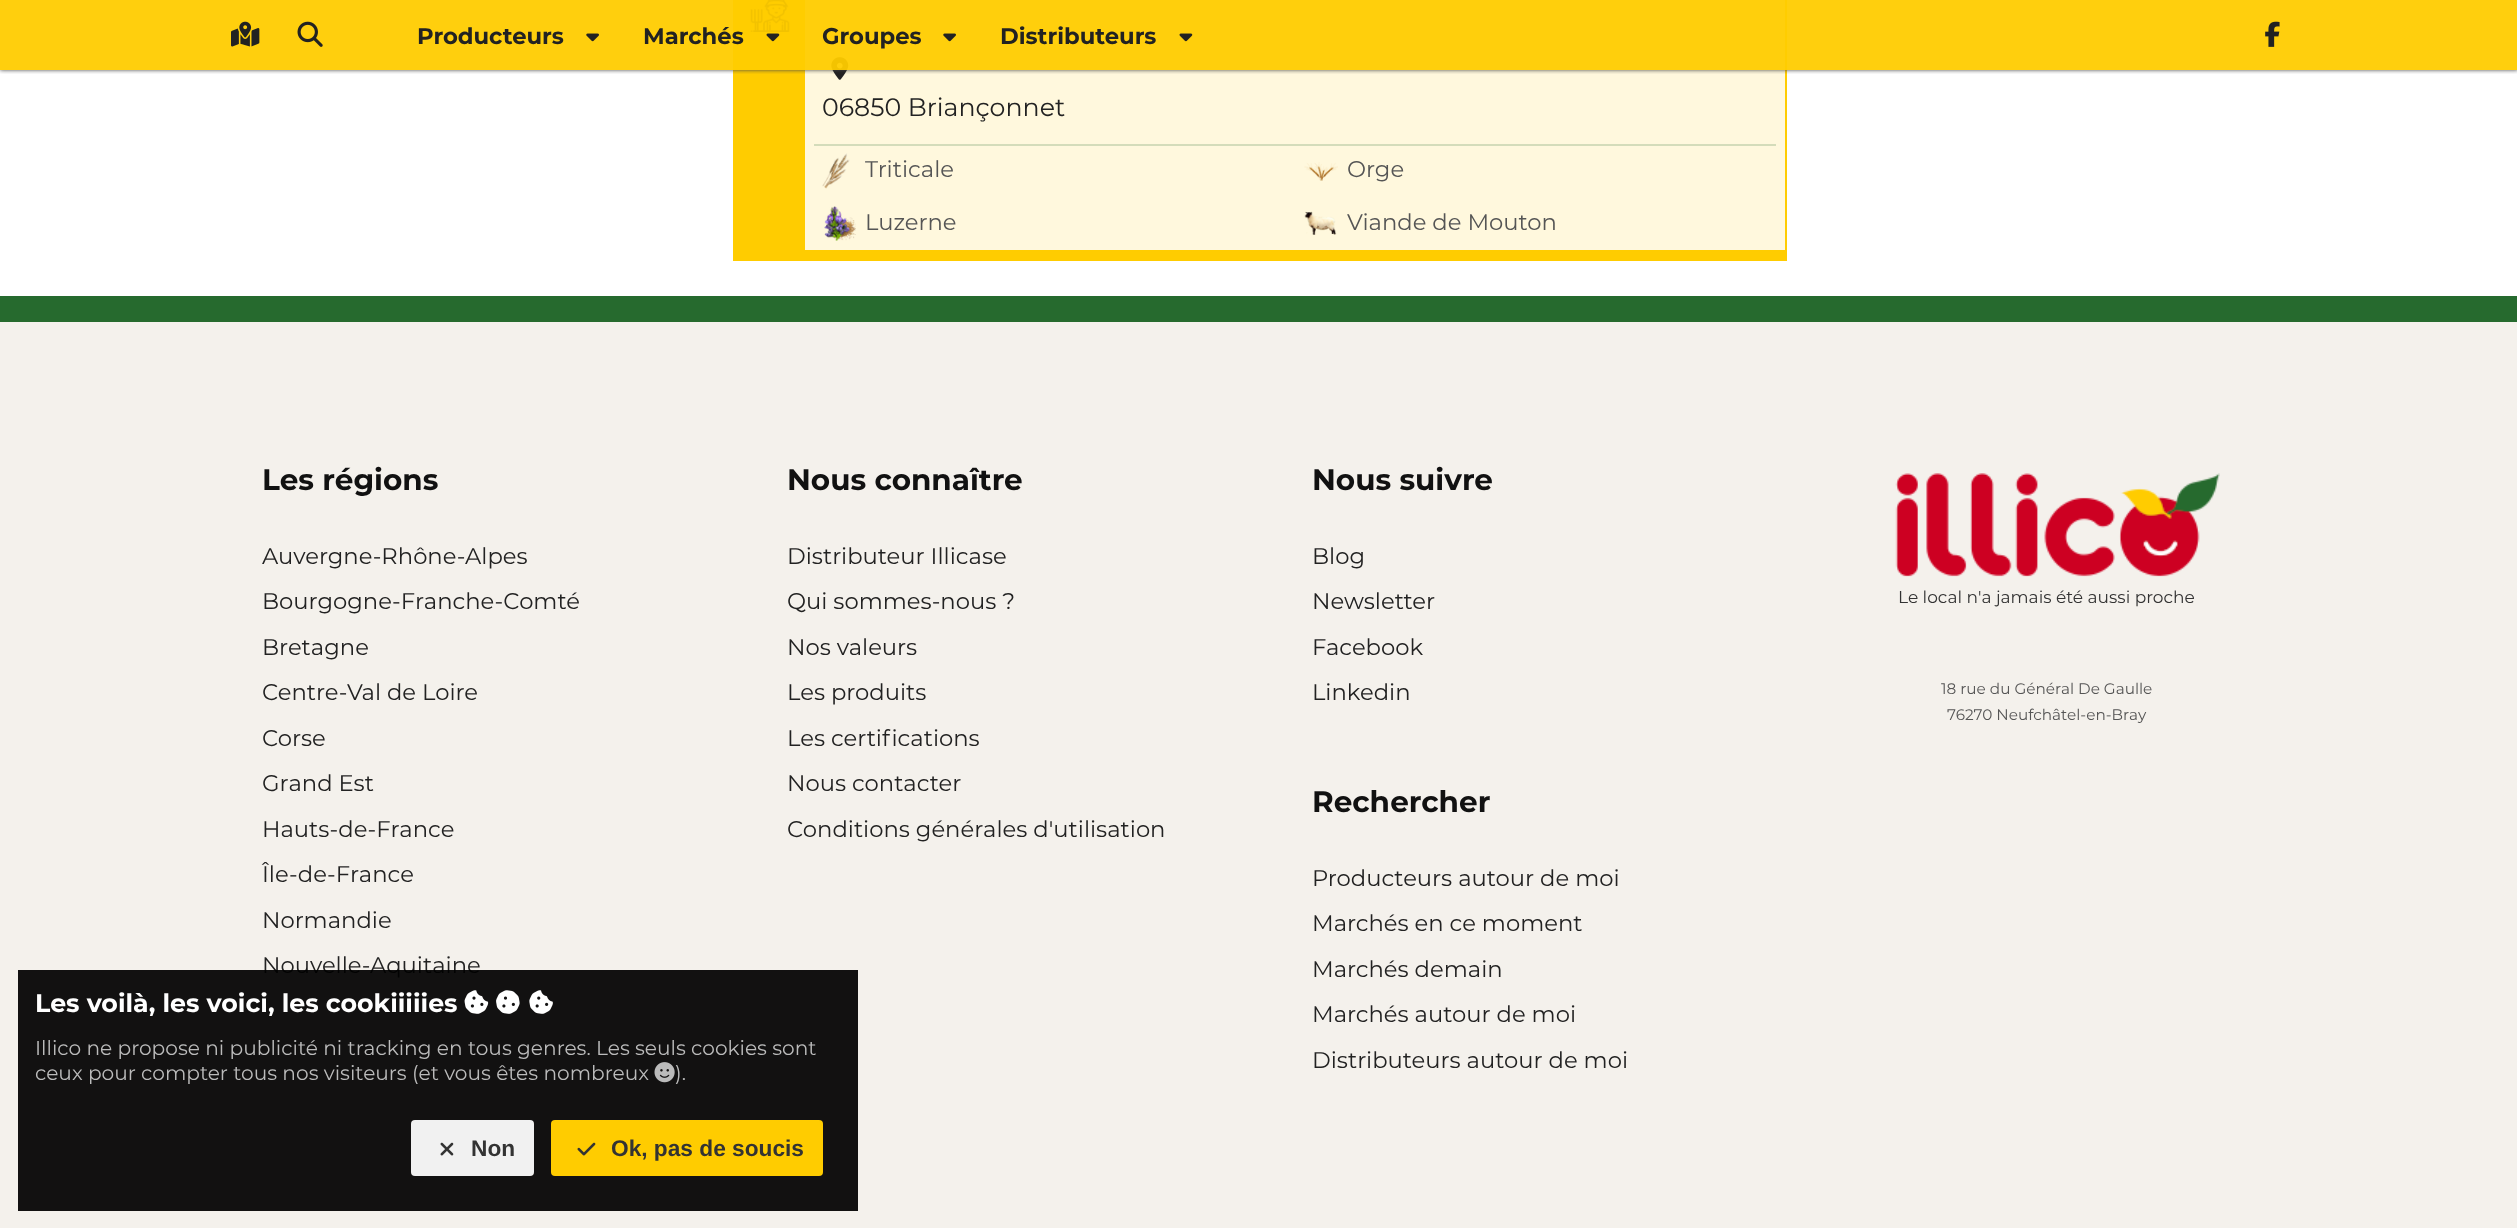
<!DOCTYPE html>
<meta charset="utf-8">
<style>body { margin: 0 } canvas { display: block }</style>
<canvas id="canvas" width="2517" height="1228"></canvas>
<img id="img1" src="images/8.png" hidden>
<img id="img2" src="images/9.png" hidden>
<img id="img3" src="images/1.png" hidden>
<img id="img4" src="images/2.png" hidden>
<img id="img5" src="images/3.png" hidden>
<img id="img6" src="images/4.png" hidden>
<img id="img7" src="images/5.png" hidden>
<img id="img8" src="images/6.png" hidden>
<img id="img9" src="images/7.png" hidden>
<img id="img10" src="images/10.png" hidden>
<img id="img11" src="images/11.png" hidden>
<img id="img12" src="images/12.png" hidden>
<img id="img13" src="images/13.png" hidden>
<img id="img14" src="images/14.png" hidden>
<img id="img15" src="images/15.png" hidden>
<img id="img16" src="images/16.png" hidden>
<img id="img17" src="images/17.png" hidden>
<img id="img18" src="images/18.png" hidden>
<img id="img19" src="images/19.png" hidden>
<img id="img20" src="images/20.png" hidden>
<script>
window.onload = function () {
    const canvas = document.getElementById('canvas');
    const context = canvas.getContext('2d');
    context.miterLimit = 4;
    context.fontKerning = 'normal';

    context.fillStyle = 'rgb(255, 255, 255)';
    context.fillRect(0, 0, 2517, 1228);
    context.fillStyle = 'rgb(255, 204, 0)';
    context.fillRect(733, 0, 1054, 261);
    context.drawImage(document.getElementById('img1'), 750, 0, 40, 32);
    context.fillStyle = 'rgb(255, 248, 221)';
    context.fillRect(805, 0, 980, 250);
    context.drawImage(document.getElementById('img2'), 831, 57, 18, 23);
    context.save();
    context.beginPath();
    context.rect(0, 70, 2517, 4);
    context.clip();
    context.fillStyle = 'rgb(68, 68, 68)';
    context.filter = 'blur(2px)';
    context.beginPath();
    context.rect(0, 0, 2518, 70);
    context.fill();
    context.filter = 'none';
    context.restore();
    context.fillStyle = 'rgba(255, 204, 0, 0.95)';
    context.fillRect(0, 0, 2517, 70);
    context.drawImage(document.getElementById('img3'), 231, 21, 29, 26);
    context.drawImage(document.getElementById('img4'), 297, 21, 26, 26);
    context.drawImage(document.getElementById('img5'), 586, 33, 13, 9);
    context.drawImage(document.getElementById('img6'), 766, 33, 14, 9);
    context.drawImage(document.getElementById('img7'), 943, 33, 13, 9);
    context.drawImage(document.getElementById('img8'), 1179, 33, 14, 9);
    context.drawImage(document.getElementById('img9'), 2265, 21, 15, 26);
    context.fillStyle = 'rgb(212, 220, 186)';
    context.fillRect(814, 144, 962, 2);
    context.drawImage(document.getElementById('img10'), 822, 153, 28, 36);
    context.drawImage(document.getElementById('img11'), 1304, 162, 34, 19);
    context.drawImage(document.getElementById('img12'), 824, 206, 32, 35);
    context.drawImage(document.getElementById('img13'), 1304, 211, 33, 24);
    context.fillStyle = 'rgb(244, 241, 236)';
    context.fillRect(0, 322, 2517, 906);
    context.fillStyle = 'rgb(38, 106, 46)';
    context.fillRect(0, 296, 2517, 26);
    context.drawImage(document.getElementById('img14'), 1895, 473, 325, 104);
    context.font = 'bold 22.7px Montserrat';
    context.fillStyle = 'rgb(34, 34, 34)';
    context.fillText('Producteurs', 417, 44);
    context.fillText('Marchés', 643, 44);
    context.fillText('Groupes', 822, 44);
    context.fillText('Distributeurs', 1000, 44);
    context.font = '25.25px Montserrat';
    context.fillText('06850 Briançonnet', 822, 116);
    context.font = '22.7px Montserrat';
    context.fillStyle = 'rgb(85, 85, 85)';
    context.fillText('Triticale', 865, 177);
    context.fillText('Orge', 1347, 177);
    context.fillText('Luzerne', 865, 230);
    context.fillText('Viande de Mouton', 1347, 230);
    context.font = 'bold 29.5px Montserrat';
    context.fillStyle = 'rgb(17, 17, 17)';
    context.fillText('Les régions', 262, 490);
    context.font = '22.7px Montserrat';
    context.fillStyle = 'rgb(34, 34, 34)';
    context.fillText('Auvergne-Rhône-Alpes', 262, 564);
    context.fillText('Bourgogne-Franche-Comté', 262, 609);
    context.fillText('Bretagne', 262, 655);
    context.fillText('Centre-Val de Loire', 262, 700);
    context.fillText('Corse', 262, 746);
    context.fillText('Grand Est', 262, 791);
    context.fillText('Hauts-de-France', 262, 837);
    context.fillText('Île-de-France', 262, 882);
    context.fillText('Normandie', 262, 928);
    context.fillText('Nouvelle-Aquitaine', 262, 973);
    context.font = 'bold 29.5px Montserrat';
    context.fillStyle = 'rgb(17, 17, 17)';
    context.fillText('Nous connaître', 787, 490);
    context.font = '22.7px Montserrat';
    context.fillStyle = 'rgb(34, 34, 34)';
    context.fillText('Distributeur Illicase', 787, 564);
    context.fillText('Qui sommes-nous ?', 787, 609);
    context.fillText('Nos valeurs', 787, 655);
    context.fillText('Les produits', 787, 700);
    context.fillText('Les certifications', 787, 746);
    context.fillText('Nous contacter', 787, 791);
    context.fillText('Conditions générales d\'utilisation', 787, 837);
    context.font = 'bold 29.5px Montserrat';
    context.fillStyle = 'rgb(17, 17, 17)';
    context.fillText('Nous suivre', 1312, 490);
    context.font = '22.7px Montserrat';
    context.fillStyle = 'rgb(34, 34, 34)';
    context.fillText('Blog', 1312, 564);
    context.fillText('Newsletter', 1312, 609);
    context.fillText('Facebook', 1312, 655);
    context.fillText('Linkedin', 1312, 700);
    context.font = 'bold 29.5px Montserrat';
    context.fillStyle = 'rgb(17, 17, 17)';
    context.fillText('Rechercher', 1312, 812);
    context.font = '22.7px Montserrat';
    context.fillStyle = 'rgb(34, 34, 34)';
    context.fillText('Producteurs autour de moi', 1312, 886);
    context.fillText('Marchés en ce moment', 1312, 931);
    context.fillText('Marchés demain', 1312, 977);
    context.fillText('Marchés autour de moi', 1312, 1022);
    context.fillText('Distributeurs autour de moi', 1312, 1068);
    context.font = '17px Montserrat';
    context.fillStyle = 'rgb(51, 51, 51)';
    context.fillText('Le local n\'a jamais été aussi proche', 1898, 603);
    context.font = '15.25px Montserrat';
    context.fillStyle = 'rgb(85, 85, 85)';
    context.fillText('18 rue du Général De Gaulle', 1941, 694);
    context.fillText('76270 Neufchâtel-en-Bray', 1947, 720);
    context.fillStyle = 'rgba(0, 0, 0, 0.93)';
    context.fillRect(18, 970, 840, 241);
    context.font = 'bold 25.25px Montserrat';
    context.fillStyle = 'rgb(255, 255, 255)';
    context.fillText('Les voilà, les voici, les cookiiiiies', 35, 1012);
    context.drawImage(document.getElementById('img15'), 464, 990, 25, 24);
    context.drawImage(document.getElementById('img16'), 496, 990, 24, 24);
    context.drawImage(document.getElementById('img17'), 529, 990, 24, 24);
    context.font = '20.15px Montserrat';
    context.fillStyle = 'rgb(187, 187, 187)';
    context.fillText('Illico ne propose ni publicité ni tracking en tous genres. Les seuls cookies sont', 35, 1055);
    context.fillText('ceux pour compter tous nos visiteurs (et vous êtes nombreux', 35, 1080);
    context.drawImage(document.getElementById('img18'), 654, 1062, 21, 21);
    context.fillText(').', 675, 1080);
    context.fillStyle = 'rgb(241, 241, 241)';
    context.beginPath();
    context.roundRect(411, 1120, 123, 56, 4);
    context.fill();
    context.drawImage(document.getElementById('img19'), 440, 1142, 14, 14);
    context.font = 'bold 22.7px Liberation Sans';
    context.fillStyle = 'rgb(51, 51, 51)';
    context.fillText('Non', 471, 1156);
    context.fillStyle = 'rgb(255, 204, 0)';
    context.beginPath();
    context.roundRect(551, 1120, 272, 56, 4);
    context.fill();
    context.drawImage(document.getElementById('img20'), 577, 1142, 19, 14);
    context.fillStyle = 'rgb(51, 51, 51)';
    context.fillText('Ok, pas de soucis', 611, 1156);
};
</script>
